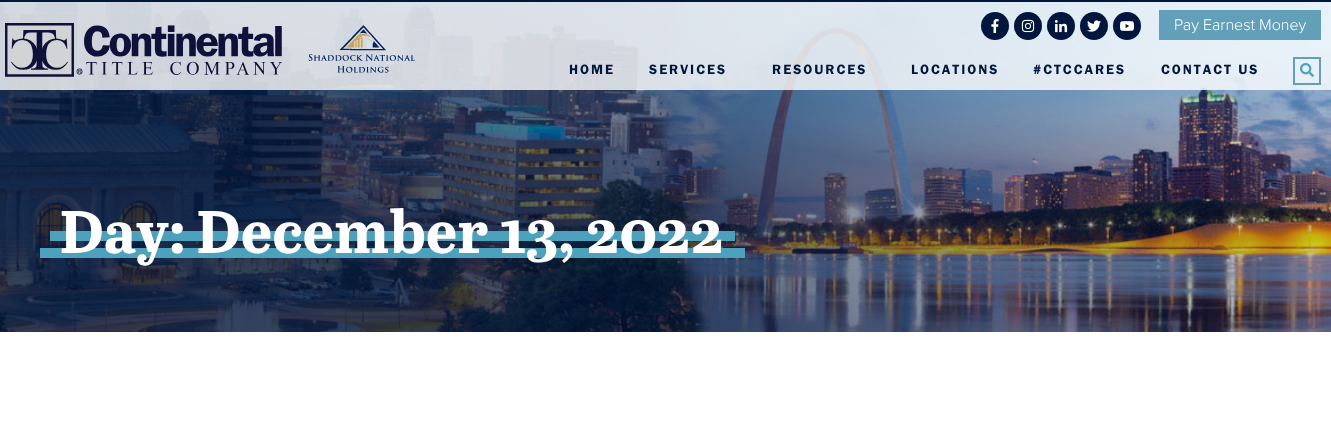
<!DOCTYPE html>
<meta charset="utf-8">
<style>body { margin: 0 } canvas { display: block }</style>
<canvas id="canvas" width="1331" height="427"></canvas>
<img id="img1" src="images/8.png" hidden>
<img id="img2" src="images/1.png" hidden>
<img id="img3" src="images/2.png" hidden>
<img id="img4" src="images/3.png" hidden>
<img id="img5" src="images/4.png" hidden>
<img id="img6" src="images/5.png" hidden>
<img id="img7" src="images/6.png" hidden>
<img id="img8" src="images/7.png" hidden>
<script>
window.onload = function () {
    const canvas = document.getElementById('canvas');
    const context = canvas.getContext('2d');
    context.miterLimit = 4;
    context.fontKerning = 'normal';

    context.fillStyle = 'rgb(255, 255, 255)';
    context.fillRect(0, 0, 1331, 427);
    context.drawImage(document.getElementById('img1'), 0, 2, 1331, 330);
    context.fillStyle = 'rgba(255, 255, 255, 0.8)';
    context.fillRect(0, 2, 1331, 88);
    context.fillStyle = 'rgb(0, 22, 60)';
    context.fillRect(0, 0, 1331, 2);
    context.drawImage(document.getElementById('img2'), 5, 23, 410, 54);
    context.beginPath();
    context.arc(995, 26, 14, 0, 2 * Math.PI);
    context.fill();
    context.drawImage(document.getElementById('img3'), 991, 19, 8, 14);
    context.beginPath();
    context.arc(1028, 26, 14, 0, 2 * Math.PI);
    context.fill();
    context.drawImage(document.getElementById('img4'), 1021, 19, 14, 14);
    context.beginPath();
    context.arc(1061, 26, 14, 0, 2 * Math.PI);
    context.fill();
    context.drawImage(document.getElementById('img5'), 1054, 20, 14, 13);
    context.beginPath();
    context.arc(1094, 26, 14, 0, 2 * Math.PI);
    context.fill();
    context.drawImage(document.getElementById('img6'), 1087, 20, 14, 12);
    context.beginPath();
    context.arc(1127, 26, 14, 0, 2 * Math.PI);
    context.fill();
    context.drawImage(document.getElementById('img7'), 1120, 21, 14, 10);
    context.fillStyle = 'rgb(98, 159, 184)';
    context.fillRect(1159, 10, 162, 30);
    context.drawImage(document.getElementById('img8'), 1300, 63, 14, 14);
    context.strokeStyle = 'rgb(98, 159, 184)';
    context.lineWidth = 2;
    context.strokeRect(1294, 58, 26, 26);
    context.fillStyle = 'rgb(76, 162, 188)';
    context.fillRect(40, 248, 705, 10);
    context.fillRect(50, 231, 685, 10);
    context.font = '300 16px Proxima Nova';
    context.fillStyle = 'rgb(255, 255, 255)';
    context.fillText('Pay Earnest Money', 1174, 30);
    context.letterSpacing = '2px';
    context.font = '14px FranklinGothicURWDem';
    context.fillStyle = 'rgb(0, 22, 60)';
    context.fillText('HOME', 569, 74);
    context.fillText('SERVICES', 649, 74);
    context.fillText('RESOURCES', 772, 74);
    context.fillText('LOCATIONS', 911, 74);
    context.fillText('#CTCCARES', 1033, 74);
    context.fillText('CONTACT US', 1161, 74);
    context.letterSpacing = '0px';
    context.font = 'bold 59.9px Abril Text';
    context.fillStyle = 'rgb(255, 255, 255)';
    context.fillText('Day: December 13, 2022', 60, 253);
};
</script>
